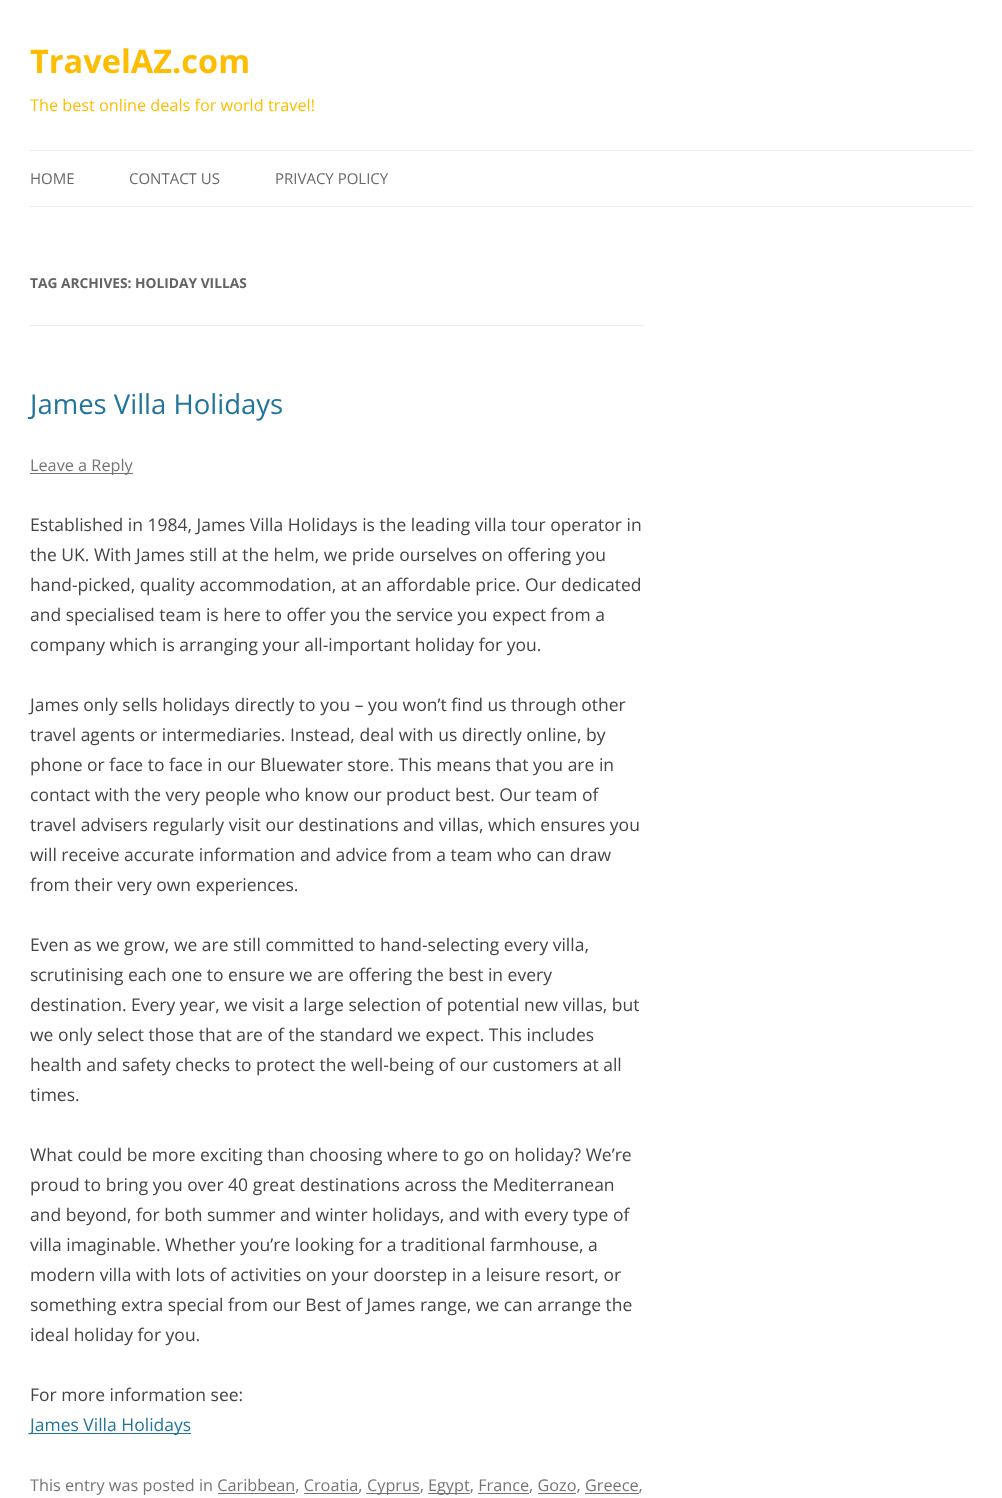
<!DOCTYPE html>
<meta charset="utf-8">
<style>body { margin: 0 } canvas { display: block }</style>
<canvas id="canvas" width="1002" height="1498"></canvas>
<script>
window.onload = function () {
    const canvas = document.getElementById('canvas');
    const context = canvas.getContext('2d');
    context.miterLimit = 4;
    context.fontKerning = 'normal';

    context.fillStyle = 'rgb(255, 255, 255)';
    context.fillRect(0, 0, 1002, 1498);
    context.fillStyle = 'rgb(237, 237, 237)';
    context.fillRect(30, 150, 943, 1);
    context.fillRect(30, 206, 943, 1);
    context.fillRect(30, 325, 614, 1);
    context.fillStyle = 'rgb(117, 117, 117)';
    context.fillRect(30, 473, 103, 1);
    context.fillStyle = 'rgb(33, 117, 155)';
    context.fillRect(30, 1433, 161, 1);
    context.fillStyle = 'rgb(117, 117, 117)';
    context.fillRect(366, 1493, 54, 1);
    context.fillRect(428, 1493, 42, 1);
    context.fillRect(218, 1493, 77, 1);
    context.fillRect(304, 1493, 55, 1);
    context.fillRect(478, 1493, 51, 1);
    context.fillRect(538, 1493, 38, 1);
    context.fillRect(585, 1493, 54, 1);
    context.font = 'bold 32.5px Open Sans';
    context.fillStyle = 'rgb(254, 189, 0)';
    context.fillText('TravelAZ.com', 30, 73);
    context.font = '16.25px Open Sans';
    context.fillText('The best online deals for world travel!', 30, 111);
    context.font = '15px Open Sans';
    context.fillStyle = 'rgb(106, 106, 106)';
    context.fillText('HOME', 30, 184);
    context.fillText('CONTACT US', 129, 184);
    context.fillText('PRIVACY POLICY', 275, 184);
    context.font = 'bold 13.75px Open Sans';
    context.fillStyle = 'rgb(99, 99, 99)';
    context.fillText('TAG ARCHIVES: HOLIDAY VILLAS', 30, 288);
    context.font = '27.5px Open Sans';
    context.fillStyle = 'rgb(33, 117, 155)';
    context.fillText('James Villa Holidays', 30, 414);
    context.font = '16.25px Open Sans';
    context.fillStyle = 'rgb(117, 117, 117)';
    context.fillText('Leave a Reply', 30, 471);
    context.font = '17.5px Open Sans';
    context.fillStyle = 'rgb(68, 68, 68)';
    context.fillText('Established in 1984, James Villa Holidays is the leading villa tour operator in', 30, 531);
    context.fillText('the UK. With James still at the helm, we pride ourselves on offering you', 30, 561);
    context.fillText('hand-picked, quality accommodation, at an affordable price. Our dedicated', 30, 591);
    context.fillText('and specialised team is here to offer you the service you expect from a', 30, 621);
    context.fillText('company which is arranging your all-important holiday for you.', 30, 651);
    context.fillText('James only sells holidays directly to you – you won’t find us through other', 30, 711);
    context.fillText('travel agents or intermediaries. Instead, deal with us directly online, by', 30, 741);
    context.fillText('phone or face to face in our Bluewater store. This means that you are in', 30, 771);
    context.fillText('contact with the very people who know our product best. Our team of', 30, 801);
    context.fillText('travel advisers regularly visit our destinations and villas, which ensures you', 30, 831);
    context.fillText('will receive accurate information and advice from a team who can draw', 30, 861);
    context.fillText('from their very own experiences.', 30, 891);
    context.fillText('Even as we grow, we are still committed to hand-selecting every villa,', 30, 951);
    context.fillText('scrutinising each one to ensure we are offering the best in every', 30, 981);
    context.fillText('destination. Every year, we visit a large selection of potential new villas, but', 30, 1011);
    context.fillText('we only select those that are of the standard we expect. This includes', 30, 1041);
    context.fillText('health and safety checks to protect the well-being of our customers at all', 30, 1071);
    context.fillText('times.', 30, 1101);
    context.fillText('What could be more exciting than choosing where to go on holiday? We’re', 30, 1161);
    context.fillText('proud to bring you over 40 great destinations across the Mediterranean', 30, 1191);
    context.fillText('and beyond, for both summer and winter holidays, and with every type of', 30, 1221);
    context.fillText('villa imaginable. Whether you’re looking for a traditional farmhouse, a', 30, 1251);
    context.fillText('modern villa with lots of activities on your doorstep in a leisure resort, or', 30, 1281);
    context.fillText('something extra special from our Best of James range, we can arrange the', 30, 1311);
    context.fillText('ideal holiday for you.', 30, 1341);
    context.fillText('For more information see:', 30, 1401);
    context.fillStyle = 'rgb(33, 117, 155)';
    context.fillText('James Villa Holidays', 30, 1431);
    context.font = '16.25px Open Sans';
    context.fillStyle = 'rgb(117, 117, 117)';
    context.fillText('This entry was posted in Caribbean, Croatia,', 30, 1491);
    context.fillText('Cyprus,', 367, 1491);
    context.fillText('Egypt, France, Gozo, Greece,', 428, 1491);
};
</script>
